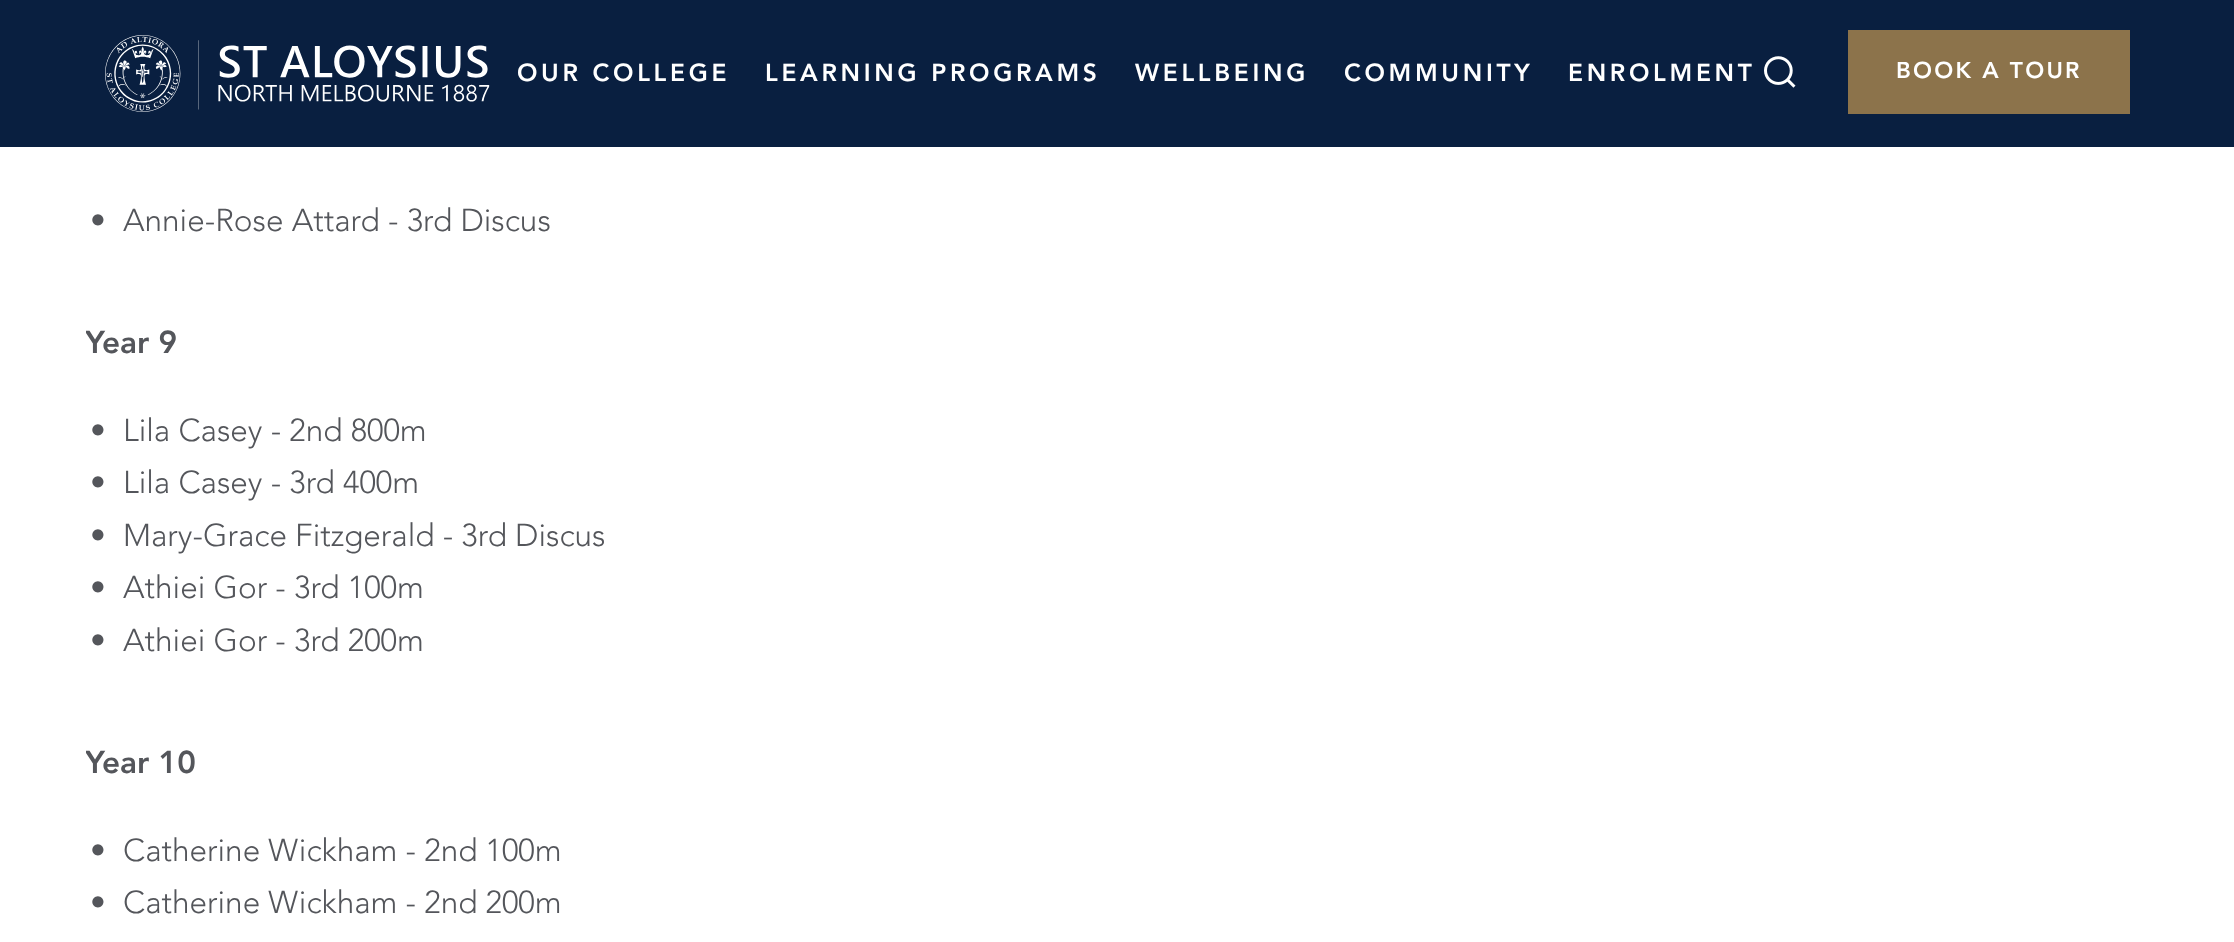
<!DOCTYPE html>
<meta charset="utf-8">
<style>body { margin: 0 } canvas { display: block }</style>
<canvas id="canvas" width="2234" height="942"></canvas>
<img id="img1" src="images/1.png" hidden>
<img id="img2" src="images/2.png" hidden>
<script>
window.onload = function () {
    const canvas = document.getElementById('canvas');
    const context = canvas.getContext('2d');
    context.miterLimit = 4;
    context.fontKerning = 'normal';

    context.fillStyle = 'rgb(255, 255, 255)';
    context.fillRect(0, 0, 2234, 942);
    context.fillStyle = 'rgb(9, 31, 64)';
    context.fillRect(0, 0, 2234, 147);
    context.drawImage(document.getElementById('img1'), 105, 35, 385, 77);
    context.drawImage(document.getElementById('img2'), 1764, 56, 32, 32);
    context.fillStyle = 'rgb(140, 115, 75)';
    context.fillRect(1848, 30, 282, 84);
    context.letterSpacing = '3.7px';
    context.font = '900 24.5px Avenir';
    context.fillStyle = 'rgb(255, 255, 255)';
    context.fillText('OUR COLLEGE', 517, 81);
    context.fillText('LEARNING PROGRAMS', 765, 81);
    context.fillText('WELLBEING', 1135, 81);
    context.fillText('COMMUNITY', 1344, 81);
    context.fillText('ENROLMENT', 1568, 81);
    context.letterSpacing = '2.25px';
    context.font = '900 22.75px Avenir';
    context.fillText('BOOK A TOUR', 1896, 78);
    context.letterSpacing = '0px';
    context.font = '900 31.5px Avenir';
    context.fillStyle = 'rgb(84, 86, 91)';
    context.fillText('•', 90, 231);
    context.font = '300 31.5px Avenir';
    context.fillText('Annie-Rose Attard - 3rd Discus', 123, 231);
    context.save();
    context.beginPath();
    context.rect(86, 0, 1549, 931);
    context.clip();
    context.font = '900 31.5px Avenir';
    context.fillText('Year 9', 85, 353);
    context.restore();
    context.font = '900 31.5px Avenir';
    context.fillText('•', 90, 441);
    context.font = '300 31.5px Avenir';
    context.fillText('Lila Casey - 2nd 800m', 123, 441);
    context.font = '900 31.5px Avenir';
    context.fillText('•', 90, 493);
    context.font = '300 31.5px Avenir';
    context.fillText('Lila Casey - 3rd 400m', 123, 493);
    context.font = '900 31.5px Avenir';
    context.fillText('•', 90, 546);
    context.font = '300 31.5px Avenir';
    context.fillText('Mary-Grace Fitzgerald - 3rd Discus', 123, 546);
    context.font = '900 31.5px Avenir';
    context.fillText('•', 90, 598);
    context.font = '300 31.5px Avenir';
    context.fillText('Athiei Gor - 3rd 100m', 123, 598);
    context.font = '900 31.5px Avenir';
    context.fillText('•', 90, 651);
    context.font = '300 31.5px Avenir';
    context.fillText('Athiei Gor - 3rd 200m', 123, 651);
    context.save();
    context.beginPath();
    context.rect(86, 0, 1549, 931);
    context.clip();
    context.font = '900 31.5px Avenir';
    context.fillText('Year 10', 85, 773);
    context.restore();
    context.font = '900 31.5px Avenir';
    context.fillText('•', 90, 861);
    context.font = '300 31.5px Avenir';
    context.fillText('Catherine Wickham - 2nd 100m', 123, 861);
    context.font = '900 31.5px Avenir';
    context.fillText('•', 90, 913);
    context.font = '300 31.5px Avenir';
    context.fillText('Catherine Wickham - 2nd 200m', 123, 913);
};
</script>
